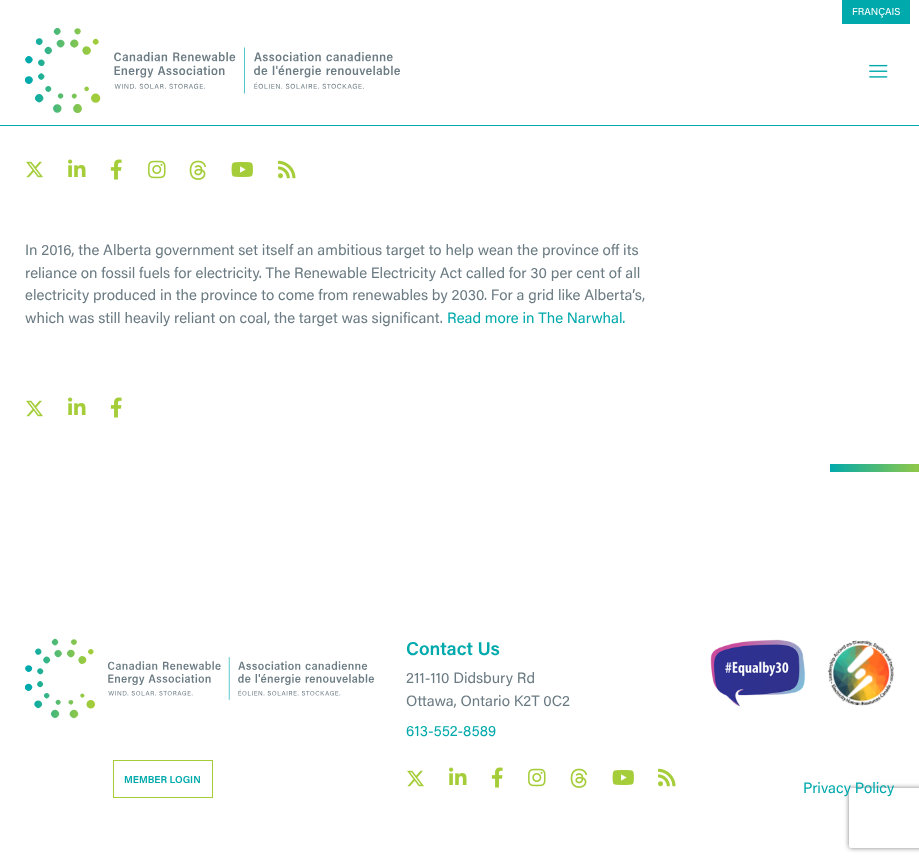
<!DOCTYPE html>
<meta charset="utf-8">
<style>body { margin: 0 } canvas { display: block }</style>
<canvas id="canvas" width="919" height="862"></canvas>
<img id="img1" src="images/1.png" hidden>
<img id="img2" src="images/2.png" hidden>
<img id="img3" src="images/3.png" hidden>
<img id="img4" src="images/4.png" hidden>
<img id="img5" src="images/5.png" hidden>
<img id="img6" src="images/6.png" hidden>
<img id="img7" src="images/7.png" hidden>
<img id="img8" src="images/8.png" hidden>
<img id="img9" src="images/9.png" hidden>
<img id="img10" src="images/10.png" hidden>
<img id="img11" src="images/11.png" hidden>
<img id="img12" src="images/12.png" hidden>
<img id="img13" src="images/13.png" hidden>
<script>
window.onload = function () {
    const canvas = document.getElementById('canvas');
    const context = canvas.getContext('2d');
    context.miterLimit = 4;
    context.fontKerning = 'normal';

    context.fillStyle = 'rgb(255, 255, 255)';
    context.fillRect(0, 0, 919, 862);
    context.fillStyle = 'rgb(0, 169, 172)';
    context.fillRect(0, 125, 919, 1);
    context.fillRect(842, 0, 68, 24);
    context.drawImage(document.getElementById('img1'), 25, 28, 375, 85);
    context.drawImage(document.getElementById('img2'), 869, 64, 19, 14);
    context.drawImage(document.getElementById('img3'), 26, 161, 17, 17);
    context.drawImage(document.getElementById('img4'), 68, 159, 18, 18);
    context.drawImage(document.getElementById('img5'), 110, 159, 12, 21);
    context.drawImage(document.getElementById('img6'), 148, 160, 18, 19);
    context.drawImage(document.getElementById('img7'), 189, 160, 18, 20);
    context.drawImage(document.getElementById('img8'), 231, 162, 22, 15);
    context.drawImage(document.getElementById('img9'), 278, 160, 18, 19);
    context.drawImage(document.getElementById('img3'), 26, 400, 17, 17);
    context.drawImage(document.getElementById('img4'), 68, 397, 18, 18);
    context.drawImage(document.getElementById('img5'), 110, 397, 12, 21);
    context.drawImage(document.getElementById('img10'), 830, 464, 89, 8);
    context.drawImage(document.getElementById('img3'), 407, 770, 17, 17);
    context.drawImage(document.getElementById('img4'), 449, 767, 18, 18);
    context.drawImage(document.getElementById('img5'), 491, 767, 12, 21);
    context.drawImage(document.getElementById('img6'), 528, 768, 18, 19);
    context.drawImage(document.getElementById('img7'), 570, 768, 18, 20);
    context.drawImage(document.getElementById('img8'), 612, 770, 22, 15);
    context.drawImage(document.getElementById('img9'), 658, 768, 18, 19);
    context.drawImage(document.getElementById('img11'), 25, 638, 349, 81);
    context.strokeStyle = 'rgb(165, 205, 57)';
    context.strokeRect(113.5, 760.5, 99, 37);
    context.drawImage(document.getElementById('img12'), 710, 639, 96, 68);
    context.drawImage(document.getElementById('img13'), 827, 640, 67, 66);
    context.save();
    context.beginPath();
    context.moveTo(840, 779);
    context.lineTo(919, 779);
    context.lineTo(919, 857);
    context.lineTo(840, 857);
    context.closePath();
    context.moveTo(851, 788);
    context.lineTo(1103, 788);
    context.bezierCurveTo(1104, 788, 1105, 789, 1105, 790);
    context.lineTo(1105, 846);
    context.bezierCurveTo(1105, 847, 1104, 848, 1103, 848);
    context.lineTo(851, 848);
    context.bezierCurveTo(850, 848, 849, 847, 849, 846);
    context.lineTo(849, 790);
    context.bezierCurveTo(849, 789, 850, 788, 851, 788);
    context.closePath();
    context.clip('evenodd');
    context.fillStyle = 'rgb(128, 128, 128)';
    context.filter = 'blur(2.5px)';
    context.beginPath();
    context.roundRect(849, 788, 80, 60, 2);
    context.fill();
    context.filter = 'none';
    context.restore();
    context.font = '10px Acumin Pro';
    context.fillStyle = 'rgb(255, 255, 255)';
    context.fillText('FRANÇAIS', 852, 15);
    context.font = '15px Acumin Pro';
    context.fillStyle = 'rgb(107, 123, 131)';
    context.fillText('In 2016, the Alberta government set itself an ambitious target to help wean the province off its', 25, 255);
    context.fillText('reliance on fossil fuels for electricity. The Renewable Electricity Act called for 30 per cent of all', 25, 278);
    context.fillText('electricity produced in the province to come from renewables by 2030. For a grid like Alberta’s,', 25, 300);
    context.fillText('which was still heavily reliant on coal, the target was significant.', 25, 323);
    context.fillStyle = 'rgb(0, 169, 172)';
    context.fillText('Read more in The Narwhal.', 447, 323);
    context.font = '600 18.5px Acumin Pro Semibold';
    context.fillText('Contact Us', 406, 655);
    context.font = '15px Acumin Pro';
    context.fillStyle = 'rgb(107, 123, 131)';
    context.fillText('211-110 Didsbury Rd', 406, 683);
    context.fillText('Ottawa, Ontario K2T 0C2', 406, 706);
    context.fillStyle = 'rgb(0, 169, 172)';
    context.fillText('613-552-8589', 406, 736);
    context.font = '600 10px Acumin Pro Semibold';
    context.fillText('MEMBER LOGIN', 124, 783);
    context.font = '15px Acumin Pro';
    context.fillText('Privacy Policy', 803, 793);
};
</script>
